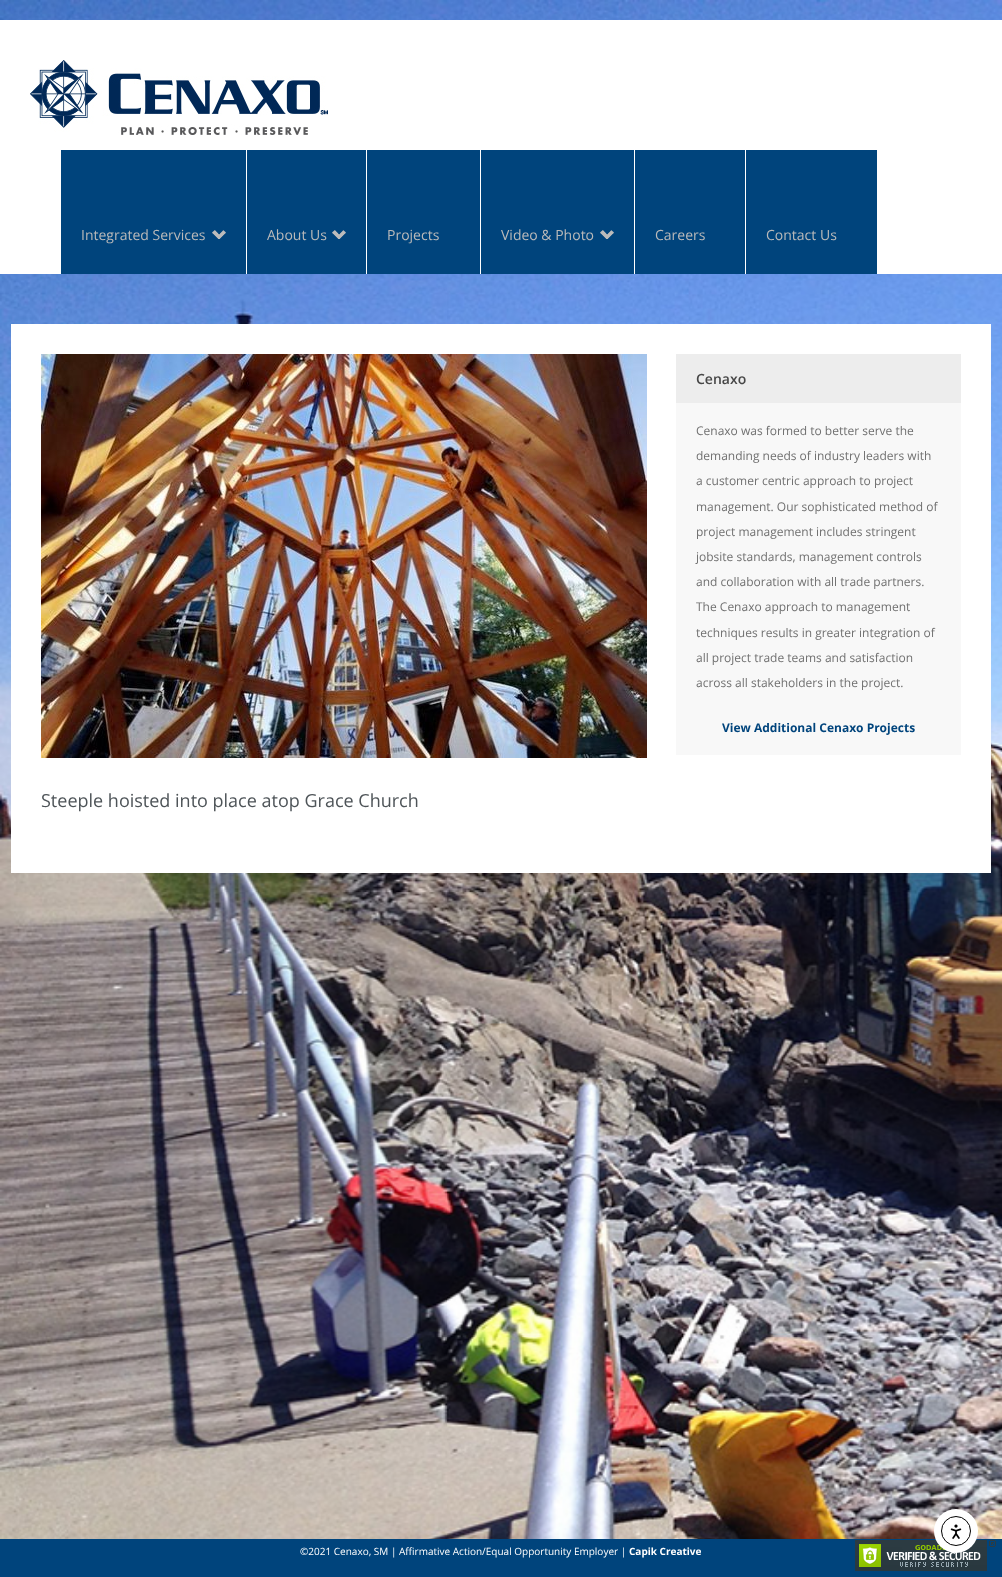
<!DOCTYPE html>
<meta charset="utf-8">
<style>body { margin: 0 } canvas { display: block }</style>
<canvas id="canvas" width="1002" height="1577"></canvas>
<img id="img1" src="images/1.png" hidden>
<img id="img2" src="images/2.png" hidden>
<img id="img3" src="images/3.png" hidden>
<img id="img4" src="images/4.png" hidden>
<img id="img5" src="images/6.png" hidden>
<img id="img6" src="images/5.png" hidden>
<script>
window.onload = function () {
    const canvas = document.getElementById('canvas');
    const context = canvas.getContext('2d');
    context.miterLimit = 4;
    context.fontKerning = 'normal';

    context.fillStyle = 'rgb(255, 255, 255)';
    context.fillRect(0, 0, 1002, 1577);
    context.drawImage(document.getElementById('img1'), 0, 0, 1002, 1539);
    context.fillRect(0, 20, 1002, 254);
    context.drawImage(document.getElementById('img2'), 30, 60, 298, 75);
    context.fillStyle = 'rgb(0, 68, 124)';
    context.fillRect(61, 150, 185, 124);
    context.drawImage(document.getElementById('img3'), 212, 230, 14, 9);
    context.fillRect(247, 150, 119, 124);
    context.drawImage(document.getElementById('img3'), 332, 230, 14, 9);
    context.fillRect(367, 150, 113, 124);
    context.fillRect(481, 150, 153, 124);
    context.drawImage(document.getElementById('img3'), 600, 230, 14, 9);
    context.fillRect(635, 150, 110, 124);
    context.fillRect(746, 150, 131, 124);
    context.fillStyle = 'rgb(255, 255, 255)';
    context.fillRect(11, 324, 980, 549);
    context.fillStyle = 'rgb(248, 248, 248)';
    context.fillRect(676, 403, 285, 352);
    context.fillStyle = 'rgb(237, 237, 237)';
    context.fillRect(676, 354, 285, 49);
    context.drawImage(document.getElementById('img4'), 41, 354, 606, 404);
    context.fillStyle = 'rgb(0, 68, 124)';
    context.fillRect(0, 1539, 1002, 38);
    context.drawImage(document.getElementById('img5'), 855, 1540, 141, 31);
    context.fillStyle = 'rgb(255, 255, 255)';
    context.beginPath();
    context.arc(956, 1531, 22, 0, 2 * Math.PI);
    context.fill();
    context.beginPath();
    context.arc(956, 1531, 14.5, 0, 2 * Math.PI);
    context.strokeStyle = 'rgb(0, 0, 0)';
    context.stroke();
    context.drawImage(document.getElementById('img6'), 950, 1524, 12, 15);
    context.font = '14px Open Sans';
    context.fillStyle = 'rgb(186, 186, 186)';
    context.fillText('Integrated Services', 81, 240);
    context.fillText('About Us', 267, 240);
    context.fillText('Projects', 387, 240);
    context.fillText('Video & Photo', 501, 240);
    context.fillText('Careers', 655, 240);
    context.fillText('Contact Us', 766, 240);
    context.font = '600 14px Open Sans';
    context.fillStyle = 'rgb(71, 71, 71)';
    context.fillText('Cenaxo', 696, 384);
    context.font = '12px Open Sans';
    context.fillStyle = 'rgb(112, 112, 112)';
    context.fillText('Cenaxo was formed to better serve the', 696, 435);
    context.fillText('demanding needs of industry leaders with', 696, 460);
    context.fillText('a customer centric approach to project', 696, 485);
    context.fillText('management. Our sophisticated method of', 696, 511);
    context.fillText('project management includes stringent', 696, 536);
    context.fillText('jobsite standards, management controls', 696, 561);
    context.fillText('and collaboration with all trade partners.', 696, 586);
    context.fillText('The Cenaxo approach to management', 696, 611);
    context.fillText('techniques results in greater integration of', 696, 637);
    context.fillText('all project trade teams and satisfaction', 696, 662);
    context.fillText('across all stakeholders in the project.', 696, 687);
    context.font = 'bold 12px Open Sans';
    context.fillStyle = 'rgb(0, 68, 124)';
    context.fillText('View Additional Cenaxo Projects', 722, 732);
    context.font = '18px Open Sans';
    context.fillStyle = 'rgb(78, 84, 88)';
    context.fillText('Steeple hoisted into place atop Grace Church', 41, 807);
    context.font = '10px Open Sans';
    context.fillStyle = 'rgb(255, 255, 255)';
    context.fillText('©2021 Cenaxo, SM | Affirmative Action/Equal Opportunity Employer |', 300, 1555);
    context.font = 'bold 10px Open Sans';
    context.fillText('Capik Creative', 629, 1555);
};
</script>
